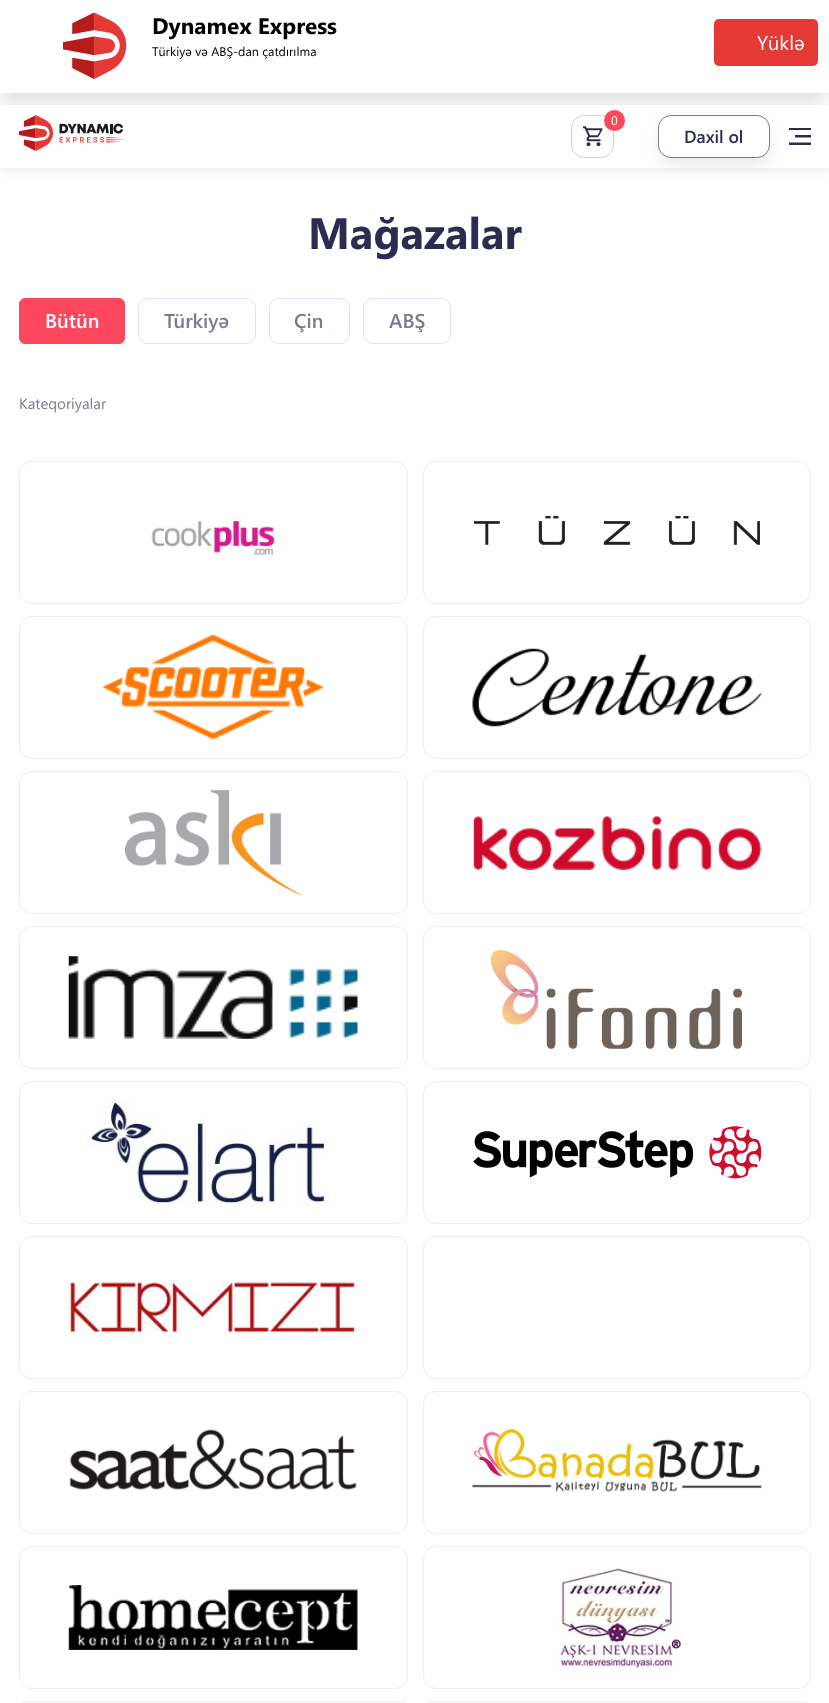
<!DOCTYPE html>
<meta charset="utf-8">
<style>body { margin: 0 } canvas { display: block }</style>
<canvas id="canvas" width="829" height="1703"></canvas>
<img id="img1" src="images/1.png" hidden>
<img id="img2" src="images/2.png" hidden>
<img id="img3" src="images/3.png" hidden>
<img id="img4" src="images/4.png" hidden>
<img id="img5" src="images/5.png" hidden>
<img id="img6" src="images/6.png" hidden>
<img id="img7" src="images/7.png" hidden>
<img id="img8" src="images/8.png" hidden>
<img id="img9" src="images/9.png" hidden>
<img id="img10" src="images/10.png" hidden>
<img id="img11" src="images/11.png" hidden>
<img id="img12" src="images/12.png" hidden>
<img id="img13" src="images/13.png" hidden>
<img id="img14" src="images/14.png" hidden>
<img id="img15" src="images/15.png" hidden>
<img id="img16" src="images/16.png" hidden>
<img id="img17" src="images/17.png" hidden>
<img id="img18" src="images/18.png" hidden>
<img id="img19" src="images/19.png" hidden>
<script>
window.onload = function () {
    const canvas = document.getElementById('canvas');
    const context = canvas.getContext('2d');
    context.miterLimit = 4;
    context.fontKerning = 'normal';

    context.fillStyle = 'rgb(255, 255, 255)';
    context.fillRect(0, 0, 829, 1703);
    context.save();
    context.beginPath();
    context.moveTo(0, 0);
    context.lineTo(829, 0);
    context.lineTo(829, 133);
    context.lineTo(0, 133);
    context.closePath();
    context.moveTo(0, 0);
    context.lineTo(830, 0);
    context.lineTo(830, 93);
    context.lineTo(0, 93);
    context.closePath();
    context.clip('evenodd');
    context.fillStyle = 'rgba(0, 0, 0, 0.12)';
    context.filter = 'blur(9.5px)';
    context.beginPath();
    context.rect(1, 15, 825, 88);
    context.fill();
    context.filter = 'none';
    context.restore();
    context.drawImage(document.getElementById('img1'), 63, 13, 64, 66);
    context.fillStyle = 'rgb(229, 57, 53)';
    context.beginPath();
    context.roundRect(714, 19, 104, 47, 5);
    context.fill();
    context.fillStyle = 'rgba(44, 44, 81, 0.08)';
    context.filter = 'blur(4px)';
    context.beginPath();
    context.rect(0, 109, 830, 62);
    context.fill();
    context.filter = 'none';
    context.fillStyle = 'rgb(255, 255, 255)';
    context.fillRect(0, 105, 829, 63);
    context.drawImage(document.getElementById('img2'), 19, 115, 107, 36);
    context.beginPath();
    context.roundRect(571.5, 115.5, 42, 42, 12.5);
    context.strokeStyle = 'rgb(206, 206, 226)';
    context.stroke();
    context.fillStyle = 'rgb(253, 71, 93)';
    context.beginPath();
    context.arc(614.5, 120.5, 10.5, 0, 2 * Math.PI);
    context.fill();
    context.drawImage(document.getElementById('img3'), 583, 126, 20, 20);
    context.fillStyle = 'rgba(0, 0, 0, 0.08)';
    context.filter = 'blur(7.5px)';
    context.beginPath();
    context.roundRect(658, 123, 112, 42, 13);
    context.fill();
    context.filter = 'none';
    context.fillStyle = 'rgb(255, 255, 255)';
    context.beginPath();
    context.roundRect(658.5, 115.5, 111, 42, 12.5);
    context.fill();
    context.strokeStyle = 'rgb(123, 123, 147)';
    context.stroke();
    context.drawImage(document.getElementById('img4'), 789, 128, 22, 17);
    context.fillStyle = 'rgb(253, 71, 93)';
    context.beginPath();
    context.roundRect(19.5, 298.5, 105, 45, 5.5);
    context.fill();
    context.strokeStyle = 'rgb(253, 71, 93)';
    context.stroke();
    context.beginPath();
    context.roundRect(138.5, 298.5, 117, 45, 9.5);
    context.strokeStyle = 'rgb(225, 225, 251)';
    context.stroke();
    context.beginPath();
    context.roundRect(269.5, 298.5, 80, 45, 9.5);
    context.stroke();
    context.beginPath();
    context.roundRect(363.5, 298.5, 87, 45, 9.5);
    context.stroke();
    context.beginPath();
    context.roundRect(19.5, 461.5, 388, 142, 12.5);
    context.strokeStyle = 'rgb(238, 238, 238)';
    context.stroke();
    context.drawImage(document.getElementById('img5'), 151, 518, 126, 38);
    context.beginPath();
    context.roundRect(423.5, 461.5, 387, 142, 12.5);
    context.stroke();
    context.drawImage(document.getElementById('img6'), 474, 516, 286, 29);
    context.beginPath();
    context.roundRect(19.5, 616.5, 388, 142, 12.5);
    context.stroke();
    context.drawImage(document.getElementById('img7'), 102, 635, 222, 105);
    context.beginPath();
    context.roundRect(423.5, 616.5, 387, 142, 12.5);
    context.stroke();
    context.drawImage(document.getElementById('img8'), 472, 648, 290, 79);
    context.beginPath();
    context.roundRect(19.5, 771.5, 388, 142, 12.5);
    context.stroke();
    context.drawImage(document.getElementById('img9'), 125, 790, 177, 105);
    context.beginPath();
    context.roundRect(423.5, 771.5, 387, 142, 12.5);
    context.stroke();
    context.drawImage(document.getElementById('img10'), 473, 816, 289, 54);
    context.beginPath();
    context.roundRect(19.5, 926.5, 388, 142, 12.5);
    context.stroke();
    context.drawImage(document.getElementById('img11'), 68, 956, 290, 83);
    context.beginPath();
    context.roundRect(423.5, 926.5, 387, 142, 12.5);
    context.stroke();
    context.drawImage(document.getElementById('img12'), 490, 949, 252, 100);
    context.beginPath();
    context.roundRect(19.5, 1081.5, 388, 142, 12.5);
    context.stroke();
    context.drawImage(document.getElementById('img13'), 85, 1100, 245, 105);
    context.beginPath();
    context.roundRect(423.5, 1081.5, 387, 142, 12.5);
    context.stroke();
    context.drawImage(document.getElementById('img14'), 473, 1126, 288, 53);
    context.beginPath();
    context.roundRect(19.5, 1236.5, 388, 142, 12.5);
    context.stroke();
    context.drawImage(document.getElementById('img15'), 69, 1282, 289, 51);
    context.beginPath();
    context.roundRect(423.5, 1236.5, 387, 142, 12.5);
    context.stroke();
    context.beginPath();
    context.roundRect(19.5, 1391.5, 388, 142, 12.5);
    context.stroke();
    context.drawImage(document.getElementById('img16'), 69, 1429, 288, 61);
    context.beginPath();
    context.roundRect(423.5, 1391.5, 387, 142, 12.5);
    context.stroke();
    context.drawImage(document.getElementById('img17'), 472, 1428, 290, 64);
    context.beginPath();
    context.roundRect(19.5, 1546.5, 388, 142, 12.5);
    context.stroke();
    context.drawImage(document.getElementById('img18'), 68, 1585, 290, 65);
    context.beginPath();
    context.roundRect(423.5, 1546.5, 387, 142, 12.5);
    context.stroke();
    context.drawImage(document.getElementById('img19'), 559, 1568, 124, 102);
    context.beginPath();
    context.roundRect(19.5, 1701.5, 388, 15, 12.5);
    context.stroke();
    context.beginPath();
    context.roundRect(423.5, 1701.5, 387, 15, 12.5);
    context.stroke();
    context.font = 'bold 22.5px Segoe UI';
    context.fillStyle = 'rgb(0, 0, 0)';
    context.fillText('Dynamex Express', 152, 34);
    context.font = '12.5px Segoe UI';
    context.fillText('Türkiyə və ABŞ-dan çatdırılma', 152, 56);
    context.font = '20px Segoe UI';
    context.fillStyle = 'rgb(255, 255, 255)';
    context.fillText('Yüklə', 757, 50);
    context.font = '12.5px Segoe UI';
    context.fillText('0', 611, 125);
    context.font = '600 17.5px Segoe UI';
    context.fillStyle = 'rgb(44, 44, 81)';
    context.fillText('Daxil ol', 684, 143);
    context.font = 'bold 43.75px Segoe UI';
    context.fillText('Mağazalar', 308, 249);
    context.font = '600 20px Segoe UI';
    context.fillStyle = 'rgb(255, 255, 255)';
    context.fillText('Bütün', 45, 328);
    context.fillStyle = 'rgb(123, 123, 147)';
    context.fillText('Türkiyə', 164, 328);
    context.fillText('Çin', 294, 328);
    context.fillText('ABŞ', 389, 328);
    context.font = '15px Segoe UI';
    context.fillText('Kateqoriyalar', 19, 409);
};
</script>
